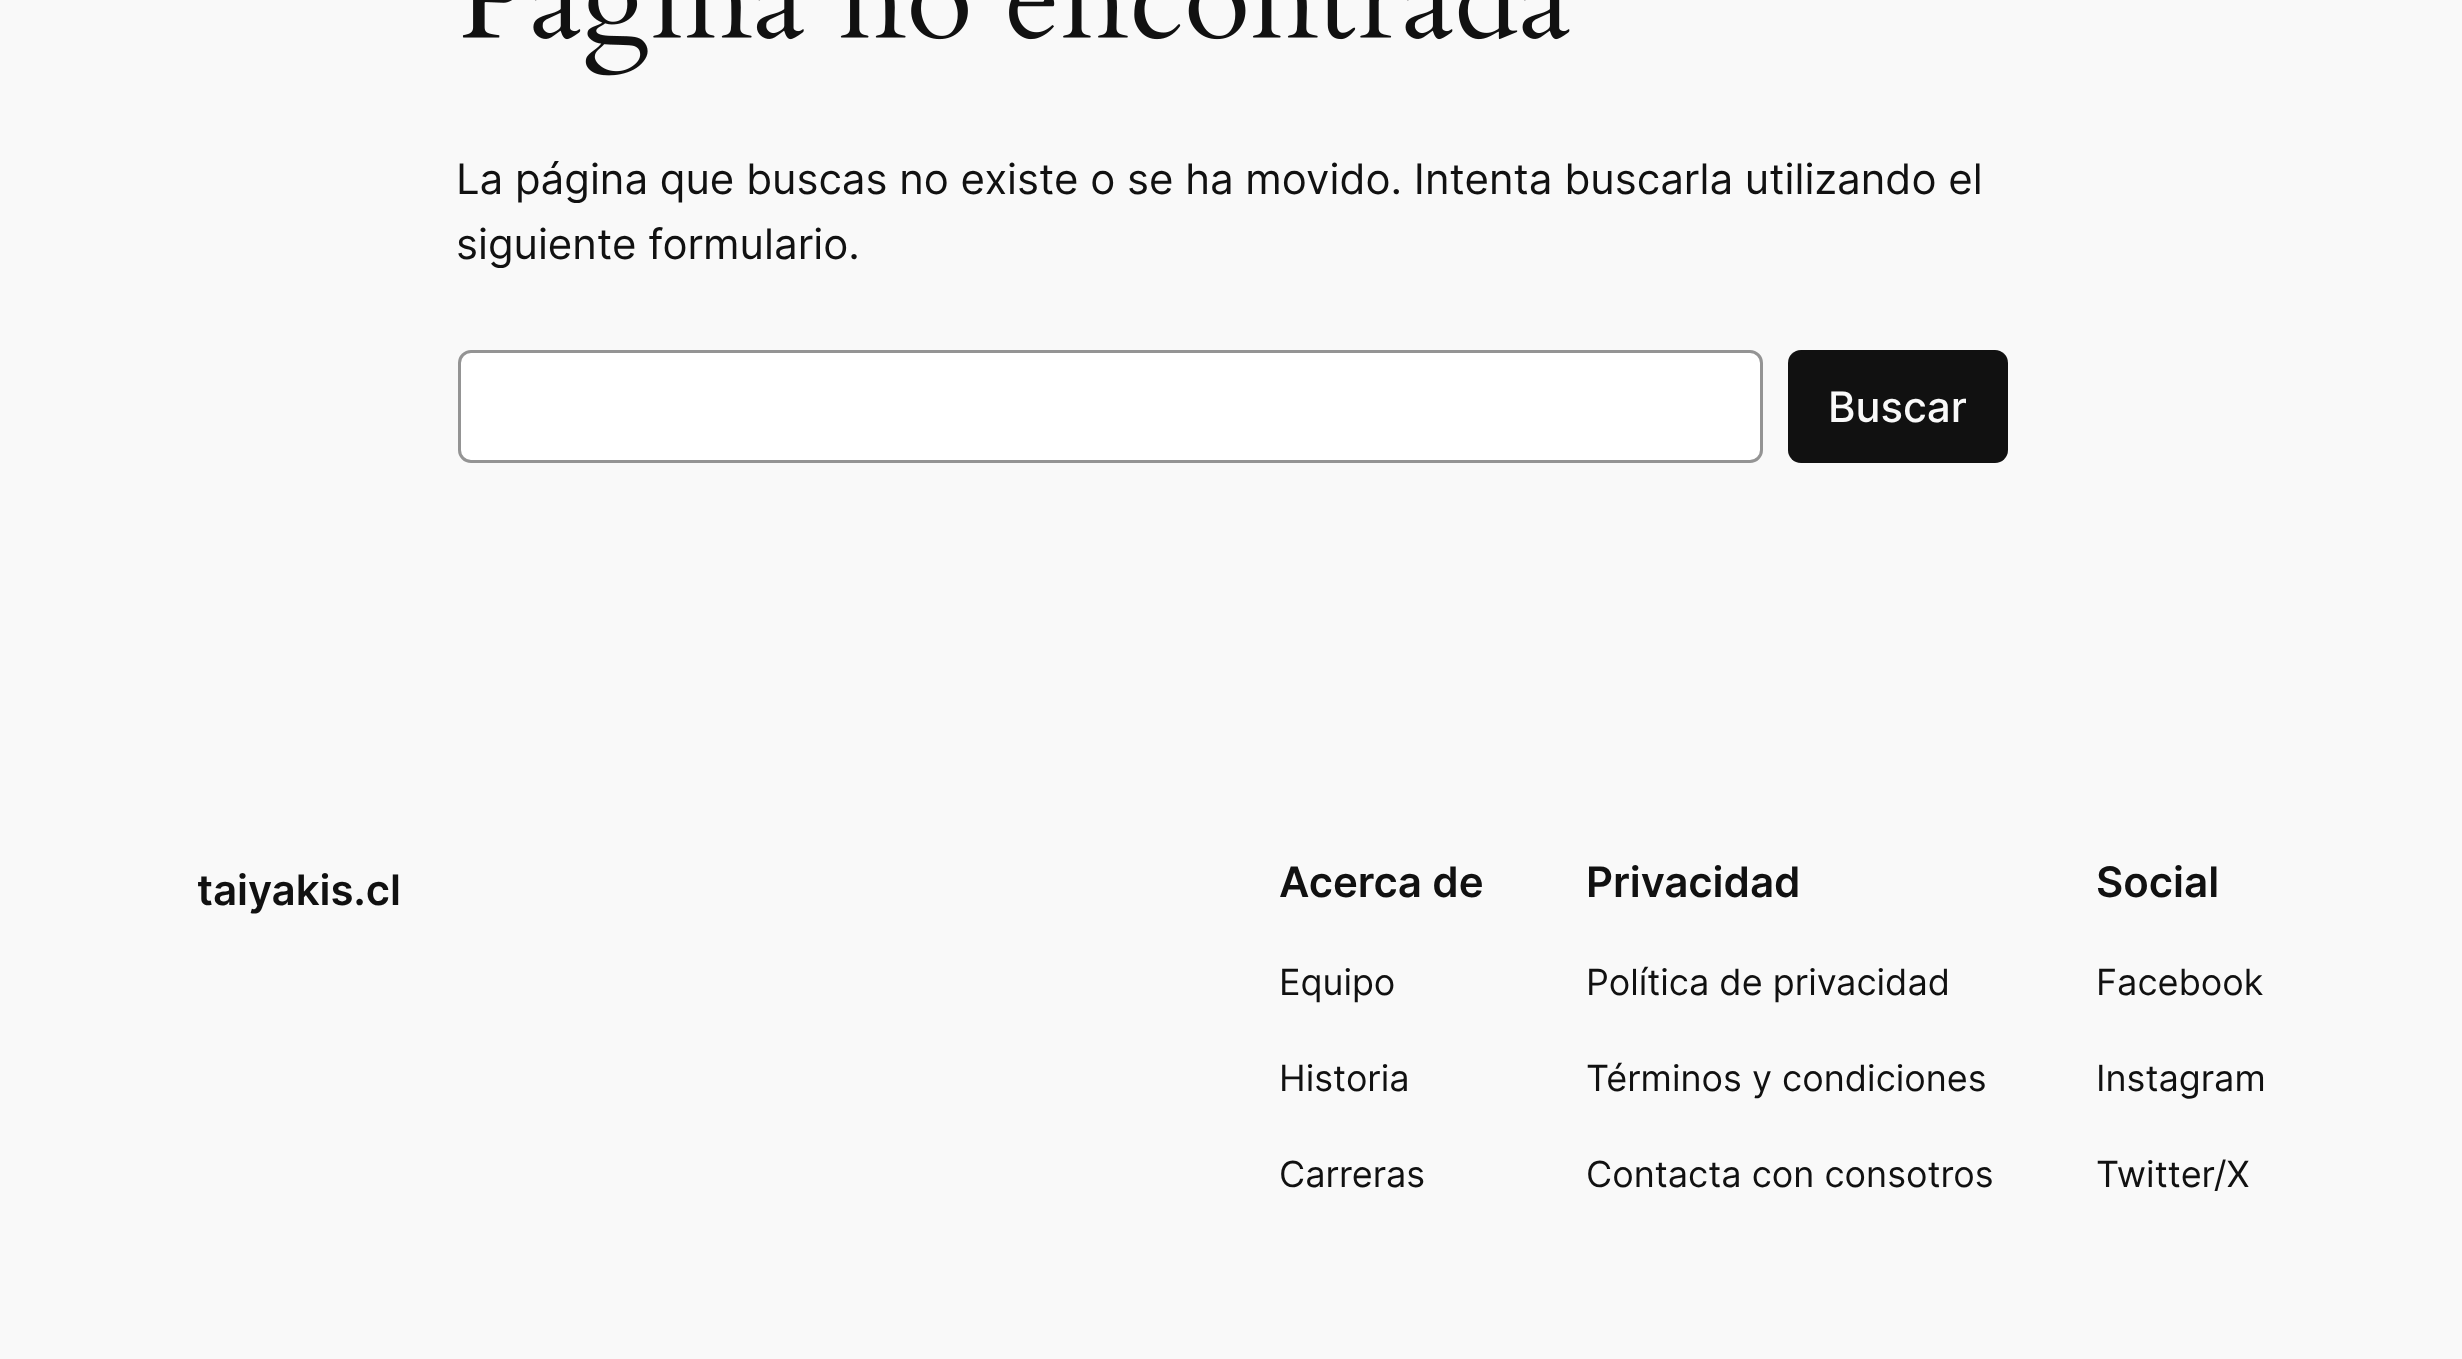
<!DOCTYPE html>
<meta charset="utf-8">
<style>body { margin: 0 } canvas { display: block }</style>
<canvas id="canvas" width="2462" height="1359"></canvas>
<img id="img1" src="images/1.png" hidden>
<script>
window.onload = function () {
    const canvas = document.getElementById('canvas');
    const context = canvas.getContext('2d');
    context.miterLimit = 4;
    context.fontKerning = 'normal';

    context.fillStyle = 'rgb(249, 249, 249)';
    context.fillRect(0, 0, 2462, 1359);
    context.drawImage(document.getElementById('img1'), 462, 0, 1108, 76);
    context.fillStyle = 'rgb(255, 255, 255)';
    context.beginPath();
    context.roundRect(459.5, 351.5, 1302, 110, 11.5);
    context.fill();
    context.strokeStyle = 'rgb(148, 148, 148)';
    context.lineWidth = 3;
    context.stroke();
    context.fillStyle = 'rgb(17, 17, 17)';
    context.beginPath();
    context.roundRect(1788, 350, 220, 113, 13);
    context.fill();
    context.wordSpacing = '-0.1px';
    context.font = '42px Inter';
    context.fillText('La página que buscas no existe o se ha movido. Intenta buscarla utilizando el', 456, 194);
    context.wordSpacing = '0px';
    context.fillText('siguiente formulario.', 456, 259);
    context.font = '500 42px Inter';
    context.fillStyle = 'rgb(249, 249, 249)';
    context.fillText('Buscar', 1828, 422);
    context.font = '600 42px Inter';
    context.fillStyle = 'rgb(17, 17, 17)';
    context.fillText('taiyakis.cl', 197, 905);
    context.fillText('Acerca de', 1279, 897);
    context.font = '36px Inter';
    context.fillText('Equipo', 1279, 995);
    context.fillText('Historia', 1279, 1091);
    context.fillText('Carreras', 1279, 1187);
    context.font = '600 42px Inter';
    context.fillText('Privacidad', 1586, 897);
    context.font = '36px Inter';
    context.fillText('Política de privacidad', 1586, 995);
    context.fillText('Términos y condiciones', 1586, 1091);
    context.fillText('Contacta con consotros', 1586, 1187);
    context.font = '600 42px Inter';
    context.fillText('Social', 2096, 897);
    context.font = '36px Inter';
    context.fillText('Facebook', 2096, 995);
    context.fillText('Instagram', 2096, 1091);
    context.fillText('Twitter/X', 2096, 1187);
};
</script>
